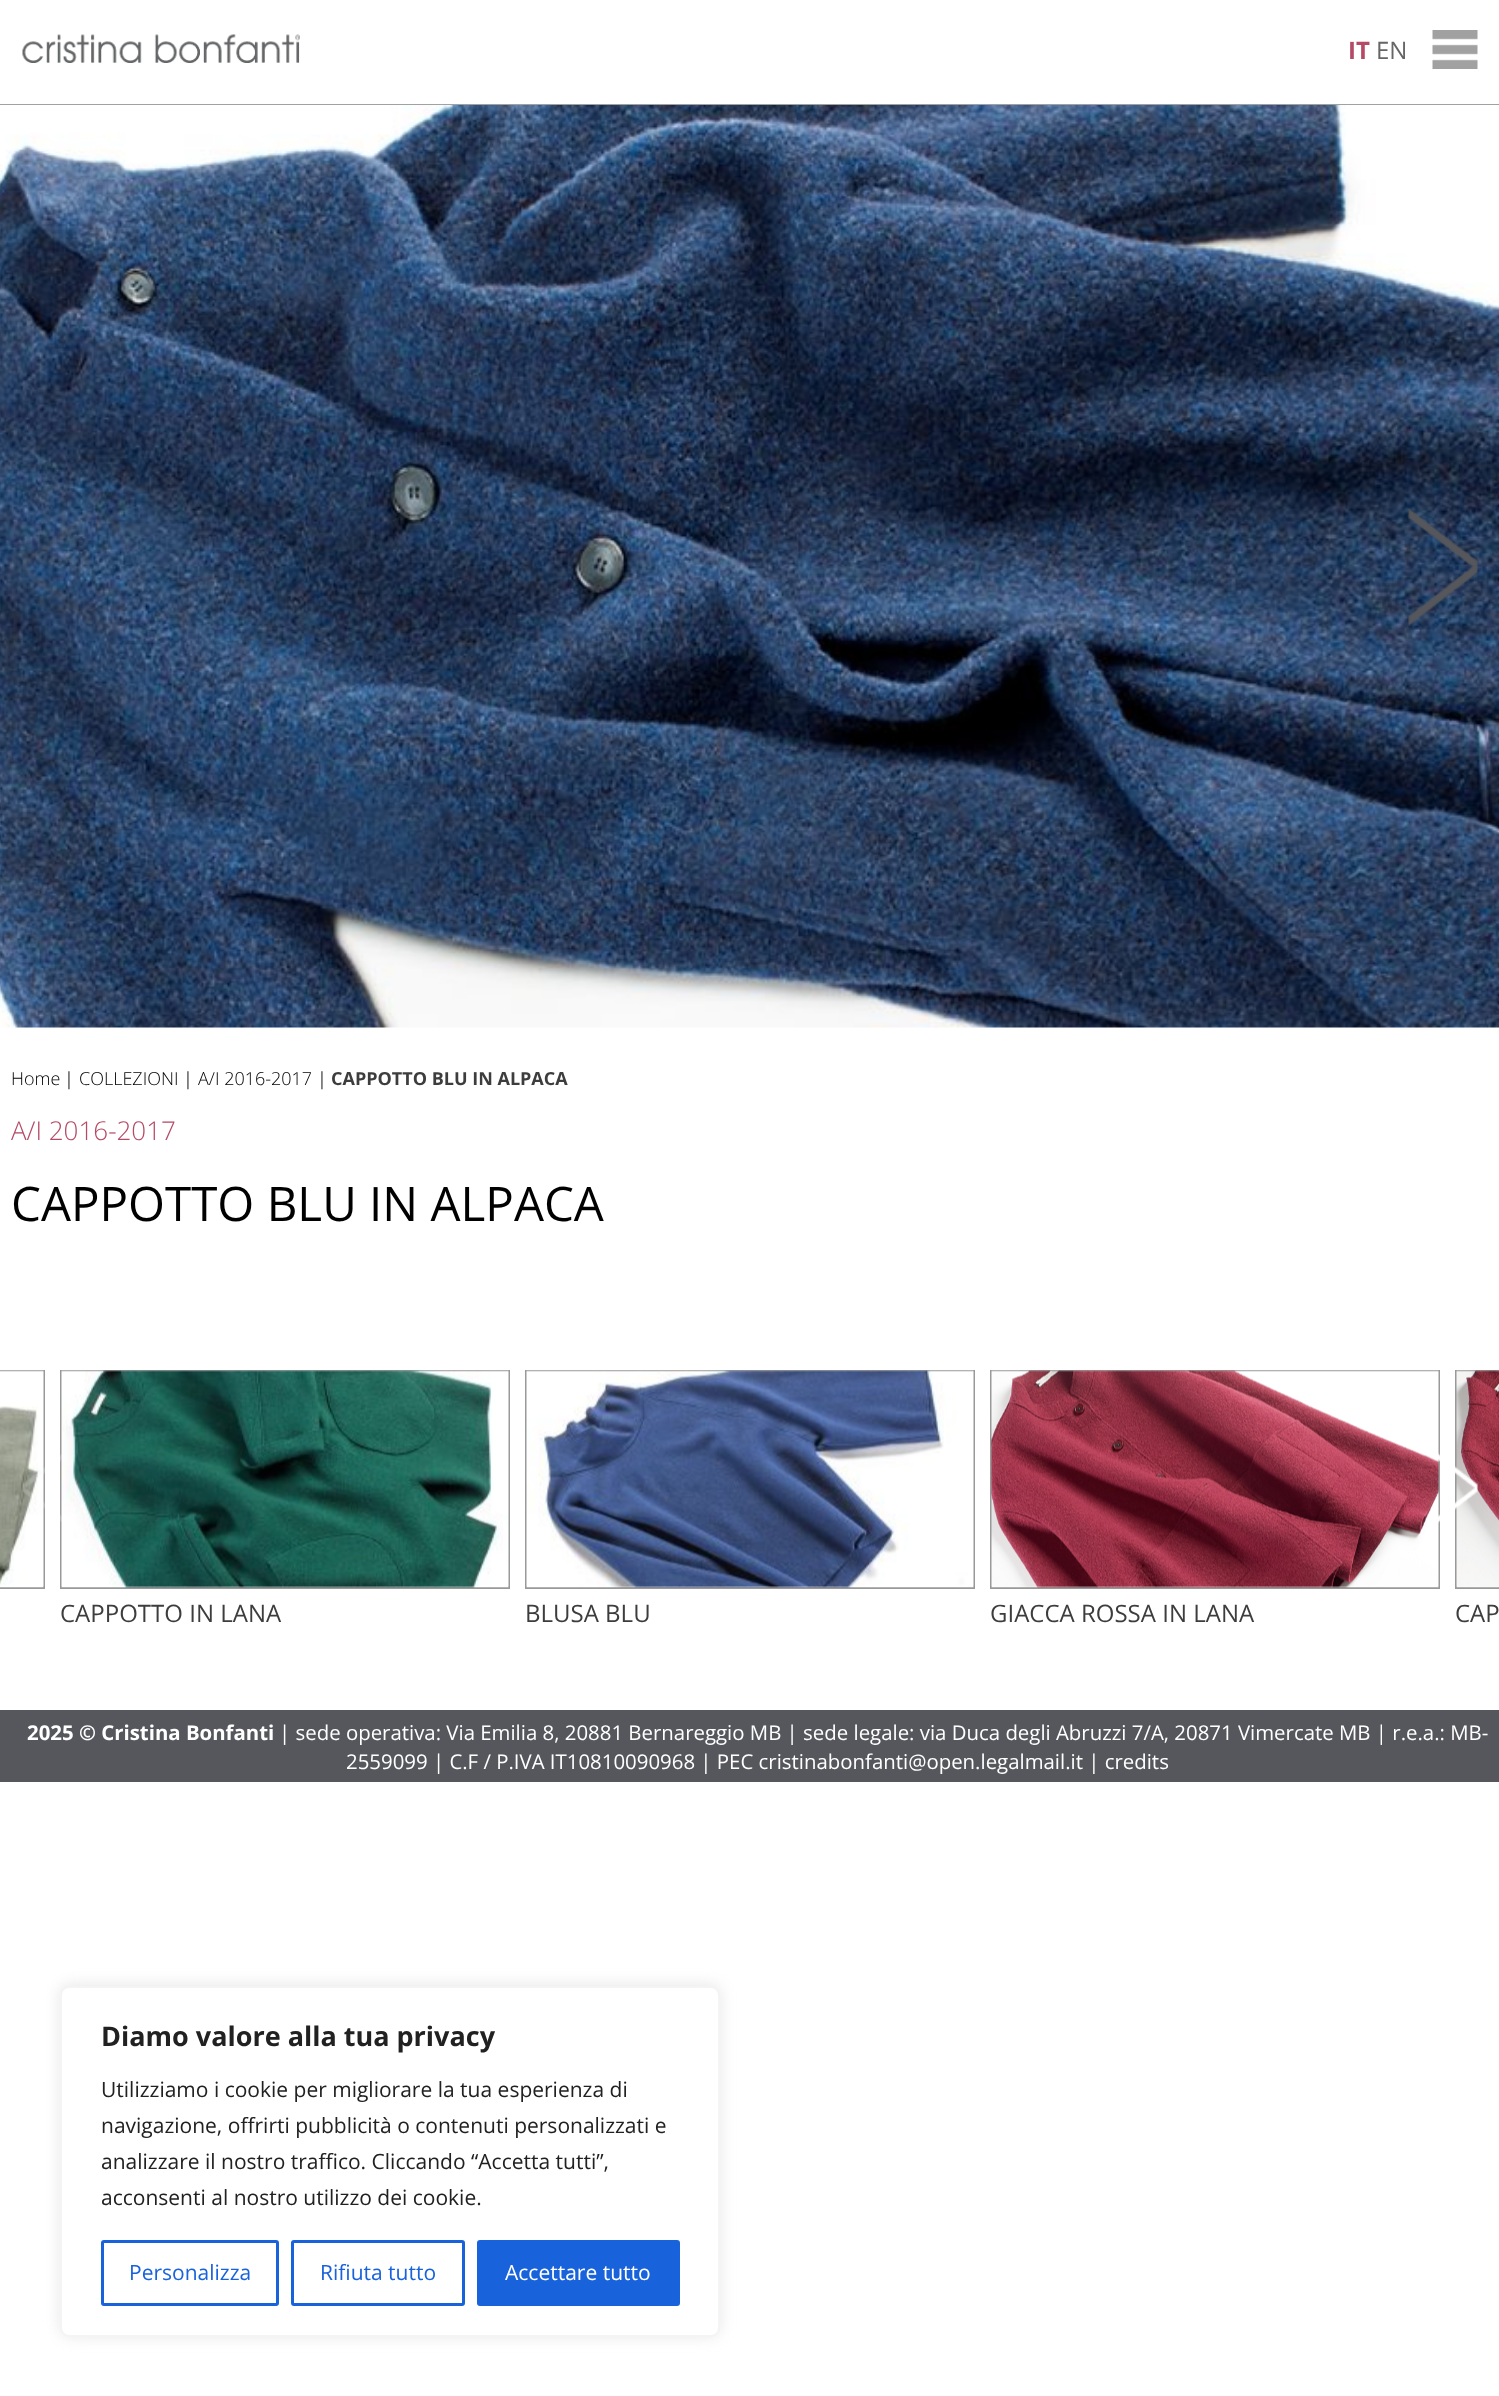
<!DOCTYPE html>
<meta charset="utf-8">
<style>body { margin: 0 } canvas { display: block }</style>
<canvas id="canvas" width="1499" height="2396"></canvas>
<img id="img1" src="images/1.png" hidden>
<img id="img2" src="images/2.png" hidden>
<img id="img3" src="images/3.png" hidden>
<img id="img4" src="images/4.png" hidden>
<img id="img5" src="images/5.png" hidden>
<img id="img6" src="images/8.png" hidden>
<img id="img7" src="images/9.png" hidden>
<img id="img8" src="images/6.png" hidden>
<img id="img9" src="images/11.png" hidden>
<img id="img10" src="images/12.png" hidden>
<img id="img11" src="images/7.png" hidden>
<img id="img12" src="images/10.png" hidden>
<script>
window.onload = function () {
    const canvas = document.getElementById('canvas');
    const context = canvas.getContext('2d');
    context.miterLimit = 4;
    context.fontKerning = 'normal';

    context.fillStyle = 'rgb(255, 255, 255)';
    context.fillRect(0, 0, 1499, 2396);
    context.fillStyle = 'rgb(161, 161, 161)';
    context.fillRect(0, 104, 1499, 1);
    context.drawImage(document.getElementById('img1'), 22, 34, 278, 29);
    context.drawImage(document.getElementById('img2'), 1432, 30, 46, 39);
    context.drawImage(document.getElementById('img3'), 0, 105, 1499, 923);
    context.drawImage(document.getElementById('img4'), 22, 510, 70, 115);
    context.drawImage(document.getElementById('img5'), 1408, 508, 70, 118);
    context.strokeStyle = 'rgb(153, 153, 153)';
    context.lineWidth = 2;
    context.strokeRect(-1, 1371, 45, 217);
    context.drawImage(document.getElementById('img6'), 0, 1370, 44, 218);
    context.strokeRect(61, 1371, 448, 217);
    context.drawImage(document.getElementById('img7'), 61, 1370, 448, 218);
    context.drawImage(document.getElementById('img8'), 22, 1454, 40, 68);
    context.strokeRect(991, 1371, 448, 217);
    context.drawImage(document.getElementById('img9'), 991, 1370, 448, 218);
    context.strokeRect(1456, 1371, 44, 217);
    context.drawImage(document.getElementById('img10'), 1456, 1370, 43, 218);
    context.drawImage(document.getElementById('img11'), 1438, 1453, 40, 70);
    context.strokeRect(526, 1371, 448, 217);
    context.drawImage(document.getElementById('img12'), 526, 1370, 448, 218);
    context.fillStyle = 'rgb(85, 87, 92)';
    context.fillRect(0, 1710, 1499, 72);
    context.fillStyle = 'rgba(172, 171, 171, 0.3)';
    context.filter = 'blur(7.5px)';
    context.beginPath();
    context.roundRect(60, 1985, 660, 351, 9);
    context.fill();
    context.filter = 'none';
    context.fillStyle = 'rgb(255, 255, 255)';
    context.beginPath();
    context.roundRect(61, 1987, 658, 349, 8);
    context.fill();
    context.strokeStyle = 'rgb(244, 244, 244)';
    context.stroke();
    context.beginPath();
    context.roundRect(102.5, 2241.5, 175, 63, 1.5);
    context.strokeStyle = 'rgb(24, 99, 220)';
    context.lineWidth = 3;
    context.stroke();
    context.beginPath();
    context.roundRect(292.5, 2241.5, 171, 63, 1.5);
    context.stroke();
    context.fillStyle = 'rgb(24, 99, 220)';
    context.beginPath();
    context.roundRect(478.5, 2241.5, 200, 63, 1.5);
    context.fill();
    context.stroke();
    context.font = 'bold 24px Open Sans';
    context.fillStyle = 'rgb(181, 74, 102)';
    context.fillText('IT', 1348, 59);
    context.font = '24px Open Sans';
    context.fillStyle = 'rgb(102, 102, 102)';
    context.fillText('EN', 1376, 59);
    context.font = '300 18px Open Sans';
    context.fillStyle = 'rgb(0, 0, 0)';
    context.fillText('Home', 11, 1085);
    context.font = '18px Open Sans';
    context.fillStyle = 'rgb(61, 61, 61)';
    context.fillText('|', 64, 1085);
    context.font = '300 18px Open Sans';
    context.fillStyle = 'rgb(0, 0, 0)';
    context.fillText('COLLEZIONI', 79, 1085);
    context.font = '18px Open Sans';
    context.fillStyle = 'rgb(61, 61, 61)';
    context.fillText('|', 183, 1085);
    context.font = '300 18px Open Sans';
    context.fillStyle = 'rgb(0, 0, 0)';
    context.fillText('A/I 2016-2017', 198, 1085);
    context.font = '18px Open Sans';
    context.fillStyle = 'rgb(61, 61, 61)';
    context.fillText('|', 317, 1085);
    context.font = 'bold 18px Open Sans';
    context.fillText('CAPPOTTO BLU IN ALPACA', 331, 1085);
    context.font = '300 26px Open Sans';
    context.fillStyle = 'rgb(181, 74, 102)';
    context.fillText('A/I 2016-2017', 11, 1140);
    context.font = '47.5px Open Sans';
    context.fillStyle = 'rgb(0, 0, 0)';
    context.fillText('CAPPOTTO BLU IN ALPACA', 11, 1221);
    context.font = '24px Open Sans';
    context.fillStyle = 'rgb(61, 61, 61)';
    context.fillText('CAPPOTTO IN LANA', 60, 1622);
    context.fillText('BLUSA BLU', 525, 1622);
    context.fillText('GIACCA ROSSA IN LANA', 990, 1622);
    context.fillText('CAP', 1455, 1622);
    context.font = 'bold 20.4px Open Sans';
    context.fillStyle = 'rgb(255, 255, 255)';
    context.fillText('2025 © Cristina Bonfanti', 27, 1740);
    context.font = '20.4px Open Sans';
    context.fillText('| sede operativa: Via Emilia 8, 20881 Bernareggio MB | sede legale: via Duca degli Abruzzi 7/A, 20871 Vimercate MB | r.e.a.: MB-', 279, 1740);
    context.fillText('2559099 | C.F / P.IVA IT10810090968 | PEC cristinabonfanti@open.legalmail.it | credits', 346, 1769);
    context.font = 'bold 27px Open Sans';
    context.fillStyle = 'rgb(33, 33, 33)';
    context.fillText('Diamo valore alla tua privacy', 101, 2046);
    context.font = '21px Open Sans';
    context.fillText('Utilizziamo i cookie per migliorare la tua esperienza di', 101, 2097);
    context.fillText('navigazione, offrirti pubblicità o contenuti personalizzati e', 101, 2133);
    context.fillText('analizzare il nostro traffico. Cliccando “Accetta tutti”,', 101, 2169);
    context.fillText('acconsenti al nostro utilizzo dei cookie.', 101, 2205);
    context.fillStyle = 'rgb(24, 99, 220)';
    context.fillText('Personalizza', 129, 2280);
    context.fillText('Rifiuta tutto', 320, 2280);
    context.fillStyle = 'rgb(255, 255, 255)';
    context.fillText('Accettare tutto', 505, 2280);
};
</script>
